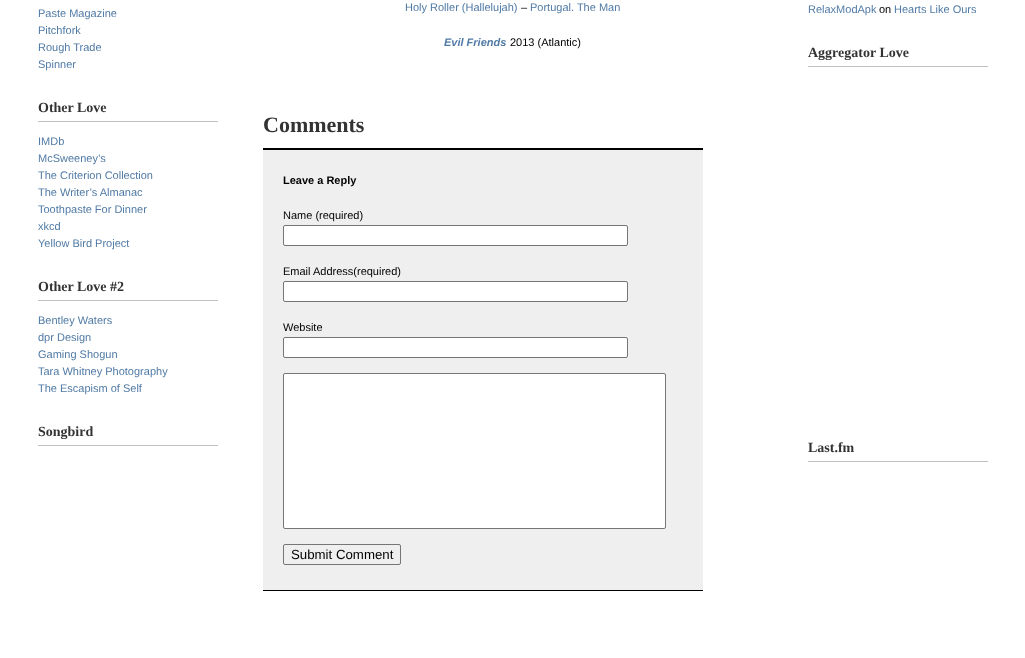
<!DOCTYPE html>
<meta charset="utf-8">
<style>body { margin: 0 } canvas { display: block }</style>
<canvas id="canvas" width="1025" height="658"></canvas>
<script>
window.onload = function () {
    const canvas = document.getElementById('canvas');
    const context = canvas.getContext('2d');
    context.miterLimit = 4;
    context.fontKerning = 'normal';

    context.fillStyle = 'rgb(255, 255, 255)';
    context.fillRect(0, 0, 1025, 658);
    context.fillStyle = 'rgb(192, 192, 192)';
    context.fillRect(38, 121, 180, 1);
    context.fillRect(38, 300, 180, 1);
    context.fillRect(38, 445, 180, 1);
    context.fillStyle = 'rgb(239, 239, 239)';
    context.fillRect(263, 150, 440, 440);
    context.fillStyle = 'rgb(0, 0, 0)';
    context.fillRect(263, 148, 440, 2);
    context.fillRect(263, 590, 440, 1);
    context.fillStyle = 'rgb(255, 255, 255)';
    context.beginPath();
    context.roundRect(283.5, 225.5, 344, 20, 1.5);
    context.fill();
    context.strokeStyle = 'rgb(118, 118, 118)';
    context.stroke();
    context.beginPath();
    context.roundRect(283.5, 281.5, 344, 20, 1.5);
    context.fill();
    context.stroke();
    context.beginPath();
    context.roundRect(283.5, 337.5, 344, 20, 1.5);
    context.fill();
    context.stroke();
    context.beginPath();
    context.roundRect(283.5, 373.5, 382, 155, 1.5);
    context.fill();
    context.stroke();
    context.beginPath();
    context.roundRect(283.5, 544.5, 117, 20, 1.5);
    context.stroke();
    context.fillStyle = 'rgb(192, 192, 192)';
    context.fillRect(808, 66, 180, 1);
    context.fillRect(808, 461, 180, 1);
    context.font = '11px Liberation Sans';
    context.fillStyle = 'rgb(80, 122, 165)';
    context.fillText('Paste Magazine', 38, 17);
    context.fillText('Pitchfork', 38, 34);
    context.fillText('Rough Trade', 38, 51);
    context.fillText('Spinner', 38, 68);
    context.font = 'bold 14px Liberation Serif';
    context.fillStyle = 'rgb(51, 51, 51)';
    context.fillText('Other Love', 38, 112);
    context.font = '11px Liberation Sans';
    context.fillStyle = 'rgb(80, 122, 165)';
    context.fillText('IMDb', 38, 145);
    context.fillText('McSweeney’s', 38, 162);
    context.fillText('The Criterion Collection', 38, 179);
    context.fillText('The Writer’s Almanac', 38, 196);
    context.fillText('Toothpaste For Dinner', 38, 213);
    context.fillText('xkcd', 38, 230);
    context.fillText('Yellow Bird Project', 38, 247);
    context.font = 'bold 14px Liberation Serif';
    context.fillStyle = 'rgb(51, 51, 51)';
    context.fillText('Other Love #2', 38, 291);
    context.font = '11px Liberation Sans';
    context.fillStyle = 'rgb(80, 122, 165)';
    context.fillText('Bentley Waters', 38, 324);
    context.fillText('dpr Design', 38, 341);
    context.fillText('Gaming Shogun', 38, 358);
    context.fillText('Tara Whitney Photography', 38, 375);
    context.fillText('The Escapism of Self', 38, 392);
    context.font = 'bold 14px Liberation Serif';
    context.fillStyle = 'rgb(51, 51, 51)';
    context.fillText('Songbird', 38, 436);
    context.font = '11px Liberation Sans';
    context.fillStyle = 'rgb(80, 122, 165)';
    context.fillText('Holy Roller (Hallelujah)', 405, 11);
    context.fillStyle = 'rgb(0, 0, 0)';
    context.fillText('–', 521, 11);
    context.fillStyle = 'rgb(80, 122, 165)';
    context.fillText('Portugal. The Man', 530, 11);
    context.font = 'italic bold 11px Liberation Sans';
    context.fillText('Evil Friends', 444, 46);
    context.font = '11px Liberation Sans';
    context.fillStyle = 'rgb(0, 0, 0)';
    context.fillText('2013 (Atlantic)', 510, 46);
    context.font = 'bold 22px Liberation Serif';
    context.fillStyle = 'rgb(51, 51, 51)';
    context.fillText('Comments', 263, 132);
    context.font = 'bold 11px Liberation Sans';
    context.fillStyle = 'rgb(0, 0, 0)';
    context.fillText('Leave a Reply', 283, 184);
    context.font = '11px Liberation Sans';
    context.fillText('Name (required)', 283, 219);
    context.fillText('Email Address(required)', 283, 275);
    context.fillText('Website', 283, 331);
    context.font = '13.25px Liberation Sans';
    context.fillText('Submit Comment', 291, 559);
    context.font = '11px Liberation Sans';
    context.fillStyle = 'rgb(80, 122, 165)';
    context.fillText('RelaxModApk', 808, 13);
    context.fillStyle = 'rgb(0, 0, 0)';
    context.fillText('on', 879, 13);
    context.fillStyle = 'rgb(80, 122, 165)';
    context.fillText('Hearts Like Ours', 894, 13);
    context.font = 'bold 14px Liberation Serif';
    context.fillStyle = 'rgb(51, 51, 51)';
    context.fillText('Aggregator Love', 808, 57);
    context.fillText('Last.fm', 808, 452);
};
</script>
